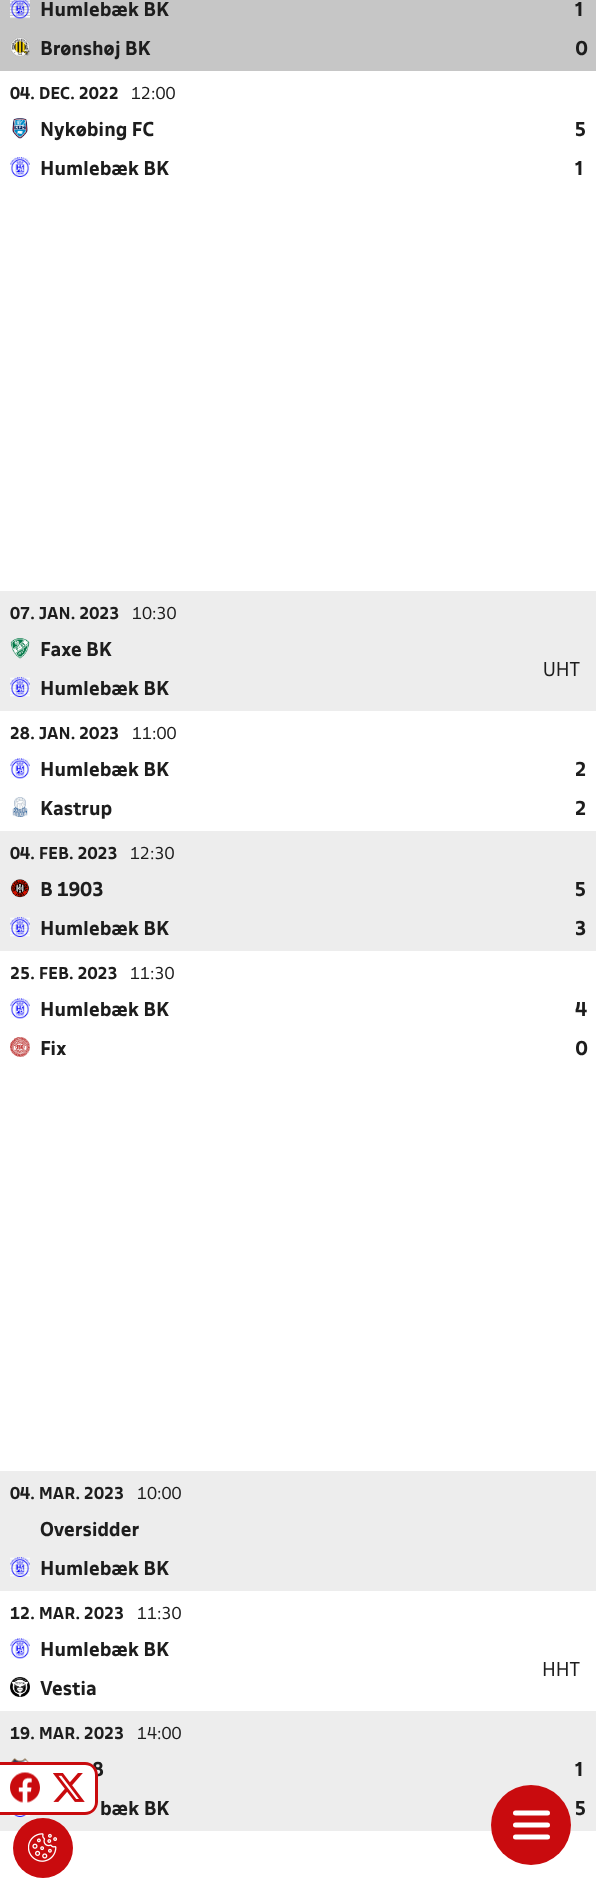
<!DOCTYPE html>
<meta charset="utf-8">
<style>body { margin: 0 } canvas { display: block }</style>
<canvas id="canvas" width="596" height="1889"></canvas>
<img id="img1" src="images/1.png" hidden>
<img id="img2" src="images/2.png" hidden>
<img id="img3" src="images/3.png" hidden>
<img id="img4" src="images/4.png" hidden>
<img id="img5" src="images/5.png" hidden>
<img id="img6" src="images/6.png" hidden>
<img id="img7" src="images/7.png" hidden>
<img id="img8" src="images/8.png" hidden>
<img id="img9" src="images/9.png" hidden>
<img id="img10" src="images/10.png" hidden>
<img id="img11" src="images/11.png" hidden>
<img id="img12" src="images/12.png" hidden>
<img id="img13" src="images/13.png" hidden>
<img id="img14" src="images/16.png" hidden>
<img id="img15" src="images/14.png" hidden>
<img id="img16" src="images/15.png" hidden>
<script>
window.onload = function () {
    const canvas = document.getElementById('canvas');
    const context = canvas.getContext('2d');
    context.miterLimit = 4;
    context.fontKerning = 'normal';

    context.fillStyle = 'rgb(255, 255, 255)';
    context.fillRect(0, 0, 596, 1889);
    context.fillStyle = 'rgb(198, 198, 198)';
    context.fillRect(0, 0, 596, 71);
    context.drawImage(document.getElementById('img1'), 10, 0, 20, 19);
    context.drawImage(document.getElementById('img2'), 11, 37, 19, 20);
    context.drawImage(document.getElementById('img3'), 12, 118, 16, 21);
    context.drawImage(document.getElementById('img4'), 10, 157, 20, 20);
    context.fillStyle = 'rgb(237, 237, 237)';
    context.fillRect(0, 591, 596, 120);
    context.drawImage(document.getElementById('img5'), 10, 638, 20, 21);
    context.drawImage(document.getElementById('img6'), 10, 677, 20, 20);
    context.drawImage(document.getElementById('img7'), 10, 758, 20, 21);
    context.drawImage(document.getElementById('img8'), 12, 797, 16, 20);
    context.fillRect(0, 831, 596, 120);
    context.drawImage(document.getElementById('img9'), 10, 879, 20, 19);
    context.drawImage(document.getElementById('img6'), 10, 917, 20, 20);
    context.drawImage(document.getElementById('img7'), 10, 998, 20, 21);
    context.drawImage(document.getElementById('img10'), 10, 1037, 20, 20);
    context.fillRect(0, 1471, 596, 120);
    context.drawImage(document.getElementById('img6'), 10, 1557, 20, 20);
    context.drawImage(document.getElementById('img7'), 10, 1638, 20, 21);
    context.drawImage(document.getElementById('img11'), 10, 1677, 20, 20);
    context.fillRect(0, 1711, 596, 120);
    context.drawImage(document.getElementById('img12'), 11, 1758, 18, 4);
    context.drawImage(document.getElementById('img13'), 10, 1815, 20, 2);
    context.fillStyle = 'rgb(201, 11, 14)';
    context.beginPath();
    context.arc(43, 1848, 30, 0, 2 * Math.PI);
    context.fill();
    context.drawImage(document.getElementById('img14'), 28, 1833, 30, 29);
    context.beginPath();
    context.arc(531, 1825, 40, 0, 2 * Math.PI);
    context.fill();
    context.beginPath();
    context.moveTo(547.5, 1837);
    context.lineTo(515.5, 1837);
    context.moveTo(547.5, 1825);
    context.lineTo(515.5, 1825);
    context.moveTo(547.5, 1813);
    context.lineTo(515.5, 1813);
    context.strokeStyle = 'rgb(255, 255, 255)';
    context.lineWidth = 5;
    context.lineCap = 'round';
    context.stroke();
    context.font = 'bold 17.5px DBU';
    context.fillStyle = 'rgb(29, 29, 29)';
    context.fillText('Humlebæk BK', 40, 16);
    context.fillText('1', 575, 16);
    context.fillText('Brønshøj BK', 40, 55);
    context.fillText('0', 575, 55);
    context.font = 'bold 15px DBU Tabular';
    context.fillText('04. DEC. 2022', 10, 99);
    context.font = '15px DBU Tabular';
    context.fillText('12:00', 131, 99);
    context.font = 'bold 17.5px DBU';
    context.fillText('Nykøbing FC', 40, 136);
    context.fillText('5', 575, 136);
    context.fillText('Humlebæk BK', 40, 175);
    context.fillText('1', 575, 175);
    context.font = 'bold 15px DBU Tabular';
    context.fillText('07. JAN. 2023', 10, 619);
    context.font = '15px DBU Tabular';
    context.fillText('10:30', 132, 619);
    context.font = 'bold 17.5px DBU';
    context.fillText('Faxe BK', 40, 656);
    context.font = '17.5px DBU';
    context.fillText('UHT', 543, 676);
    context.font = 'bold 17.5px DBU';
    context.fillText('Humlebæk BK', 40, 695);
    context.font = 'bold 15px DBU';
    context.fillText('28. JAN. 2023', 10, 739);
    context.font = '15px DBU Tabular';
    context.fillText('11:00', 132, 739);
    context.font = 'bold 17.5px DBU';
    context.fillText('Humlebæk BK', 40, 776);
    context.fillText('2', 575, 776);
    context.fillText('Kastrup', 40, 815);
    context.fillText('2', 575, 815);
    context.font = 'bold 15px DBU Tabular';
    context.fillText('04. FEB. 2023', 10, 859);
    context.font = '15px DBU Tabular';
    context.fillText('12:30', 130, 859);
    context.font = 'bold 17.5px DBU Tabular';
    context.fillText('B 1903', 40, 896);
    context.font = 'bold 17.5px DBU';
    context.fillText('5', 575, 896);
    context.fillText('Humlebæk BK', 40, 935);
    context.fillText('3', 575, 935);
    context.font = 'bold 15px DBU Tabular';
    context.fillText('25. FEB. 2023', 10, 979);
    context.font = '15px DBU Tabular';
    context.fillText('11:30', 130, 979);
    context.font = 'bold 17.5px DBU';
    context.fillText('Humlebæk BK', 40, 1016);
    context.fillText('4', 575, 1016);
    context.fillText('Fix', 40, 1055);
    context.fillText('0', 575, 1055);
    context.font = 'bold 15px DBU Tabular';
    context.fillText('04. MAR. 2023', 10, 1499);
    context.font = '15px DBU Tabular';
    context.fillText('10:00', 137, 1499);
    context.font = 'bold 17.5px DBU';
    context.fillText('Oversidder', 40, 1536);
    context.fillText('Humlebæk BK', 40, 1575);
    context.font = 'bold 15px DBU Tabular';
    context.fillText('12. MAR. 2023', 10, 1619);
    context.font = '15px DBU Tabular';
    context.fillText('11:30', 137, 1619);
    context.font = 'bold 17.5px DBU';
    context.fillText('Humlebæk BK', 40, 1656);
    context.font = '17.5px DBU';
    context.fillText('HHT', 542, 1676);
    context.font = 'bold 17.5px DBU';
    context.fillText('Vestia', 40, 1695);
    context.font = 'bold 15px DBU Tabular';
    context.fillText('19. MAR. 2023', 10, 1739);
    context.font = '15px DBU Tabular';
    context.fillText('14:00', 137, 1739);
    context.font = 'bold 17.5px DBU Tabular';
    context.fillText('8', 92, 1776);
    context.font = 'bold 17.5px DBU';
    context.fillText('1', 575, 1776);
    context.fillText('bæk BK', 100, 1815);
    context.fillText('5', 575, 1815);
    context.fillStyle = 'rgb(255, 255, 255)';
    context.beginPath();
    context.roundRect(0, 1763, 98, 52, [0, 13, 13, 0]);
    context.fill();
    context.fillStyle = 'rgb(201, 11, 14)';
    context.beginPath();
    context.moveTo(0, 1762);
    context.lineTo(85, 1762);
    context.bezierCurveTo(92, 1762, 98, 1768, 98, 1775);
    context.lineTo(98, 1802);
    context.bezierCurveTo(98, 1809, 92, 1815, 85, 1815);
    context.lineTo(0, 1815);
    context.closePath();
    context.moveTo(0, 1765);
    context.lineTo(85, 1765);
    context.bezierCurveTo(91, 1765, 95, 1769, 95, 1775);
    context.lineTo(95, 1802);
    context.bezierCurveTo(95, 1808, 91, 1812, 85, 1812);
    context.lineTo(0, 1812);
    context.closePath();
    context.fill('evenodd');
    context.drawImage(document.getElementById('img15'), 10, 1772, 30, 31);
    context.drawImage(document.getElementById('img16'), 53, 1773, 32, 29);
};
</script>
